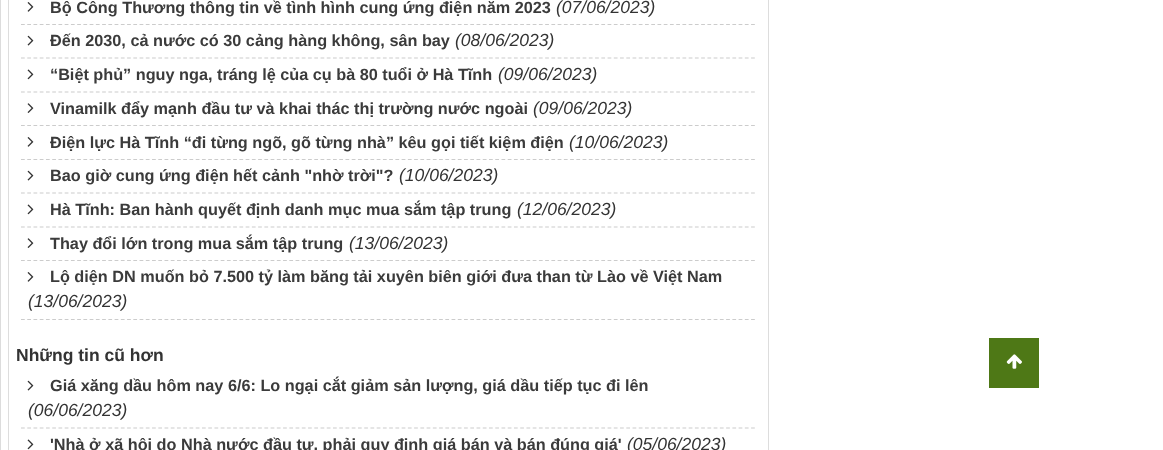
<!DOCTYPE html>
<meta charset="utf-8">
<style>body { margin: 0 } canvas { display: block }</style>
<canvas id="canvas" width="1163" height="450"></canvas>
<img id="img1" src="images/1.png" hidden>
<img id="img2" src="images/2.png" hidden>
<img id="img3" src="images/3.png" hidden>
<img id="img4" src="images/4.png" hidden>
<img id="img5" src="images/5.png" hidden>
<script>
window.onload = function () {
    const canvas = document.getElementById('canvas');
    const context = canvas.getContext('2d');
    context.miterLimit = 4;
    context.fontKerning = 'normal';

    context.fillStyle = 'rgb(255, 255, 255)';
    context.fillRect(0, 0, 1163, 450);
    context.fillStyle = 'rgb(220, 220, 220)';
    context.fillRect(0, 0, 1, 450);
    context.strokeStyle = 'rgb(221, 221, 221)';
    context.strokeRect(8.5, -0.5, 760, 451);
    context.beginPath();
    context.moveTo(21, 24.5);
    context.lineTo(755, 24.5);
    context.strokeStyle = 'rgb(204, 204, 204)';
    context.lineWidth = 1.2;
    context.setLineDash([3.75, 2.49]);
    context.stroke();
    context.drawImage(document.getElementById('img1'), 27, 2, 7, 10);
    context.beginPath();
    context.moveTo(21, 58);
    context.lineTo(755, 58);
    context.stroke();
    context.drawImage(document.getElementById('img2'), 27, 35, 7, 11);
    context.beginPath();
    context.moveTo(21, 92);
    context.lineTo(755, 92);
    context.stroke();
    context.drawImage(document.getElementById('img3'), 27, 69, 7, 11);
    context.beginPath();
    context.moveTo(21, 125.5);
    context.lineTo(755, 125.5);
    context.stroke();
    context.drawImage(document.getElementById('img4'), 27, 103, 7, 10);
    context.beginPath();
    context.moveTo(21, 159.5);
    context.lineTo(755, 159.5);
    context.stroke();
    context.drawImage(document.getElementById('img1'), 27, 137, 7, 10);
    context.beginPath();
    context.moveTo(21, 193);
    context.lineTo(755, 193);
    context.stroke();
    context.drawImage(document.getElementById('img2'), 27, 170, 7, 11);
    context.beginPath();
    context.moveTo(21, 227);
    context.lineTo(755, 227);
    context.stroke();
    context.drawImage(document.getElementById('img3'), 27, 204, 7, 11);
    context.beginPath();
    context.moveTo(21, 260.5);
    context.lineTo(755, 260.5);
    context.stroke();
    context.drawImage(document.getElementById('img4'), 27, 238, 7, 10);
    context.beginPath();
    context.moveTo(21, 319.5);
    context.lineTo(755, 319.5);
    context.stroke();
    context.drawImage(document.getElementById('img1'), 27, 272, 7, 10);
    context.beginPath();
    context.moveTo(21, 428);
    context.lineTo(755, 428);
    context.stroke();
    context.drawImage(document.getElementById('img2'), 27, 380, 7, 11);
    context.drawImage(document.getElementById('img3'), 27, 439, 7, 11);
    context.fillStyle = 'rgb(78, 120, 22)';
    context.fillRect(989, 338, 50, 50);
    context.drawImage(document.getElementById('img5'), 1006, 354, 16, 15);
    context.font = 'bold 16.25px Liberation Sans';
    context.fillStyle = 'rgb(59, 59, 59)';
    context.fillText('Bộ Công Thương thông tin về tình hình cung ứng điện năm 2023', 50, 13);
    context.font = 'italic 17.5px Liberation Sans';
    context.fillStyle = 'rgb(51, 51, 51)';
    context.fillText('(07/06/2023)', 556, 13);
    context.font = 'bold 16.25px Liberation Sans';
    context.fillStyle = 'rgb(59, 59, 59)';
    context.fillText('Đến 2030, cả nước có 30 cảng hàng không, sân bay', 50, 46);
    context.font = 'italic 17.5px Liberation Sans';
    context.fillStyle = 'rgb(51, 51, 51)';
    context.fillText('(08/06/2023)', 455, 46);
    context.font = 'bold 16.25px Liberation Sans';
    context.fillStyle = 'rgb(59, 59, 59)';
    context.fillText('“Biệt phủ” nguy nga, tráng lệ của cụ bà 80 tuổi ở Hà Tĩnh', 50, 80);
    context.font = 'italic 17.5px Liberation Sans';
    context.fillStyle = 'rgb(51, 51, 51)';
    context.fillText('(09/06/2023)', 498, 80);
    context.font = 'bold 16.25px Liberation Sans';
    context.fillStyle = 'rgb(59, 59, 59)';
    context.fillText('Vinamilk đẩy mạnh đầu tư và khai thác thị trường nước ngoài', 50, 114);
    context.font = 'italic 17.5px Liberation Sans';
    context.fillStyle = 'rgb(51, 51, 51)';
    context.fillText('(09/06/2023)', 533, 114);
    context.font = 'bold 16.25px Liberation Sans';
    context.fillStyle = 'rgb(59, 59, 59)';
    context.fillText('Điện lực Hà Tĩnh “đi từng ngõ, gõ từng nhà” kêu gọi tiết kiệm điện', 50, 148);
    context.font = 'italic 17.5px Liberation Sans';
    context.fillStyle = 'rgb(51, 51, 51)';
    context.fillText('(10/06/2023)', 569, 148);
    context.font = 'bold 16.25px Liberation Sans';
    context.fillStyle = 'rgb(59, 59, 59)';
    context.fillText('Bao giờ cung ứng điện hết cảnh "nhờ trời"?', 50, 181);
    context.font = 'italic 17.5px Liberation Sans';
    context.fillStyle = 'rgb(51, 51, 51)';
    context.fillText('(10/06/2023)', 399, 181);
    context.font = 'bold 16.25px Liberation Sans';
    context.fillStyle = 'rgb(59, 59, 59)';
    context.fillText('Hà Tĩnh: Ban hành quyết định danh mục mua sắm tập trung', 50, 215);
    context.font = 'italic 17.5px Liberation Sans';
    context.fillStyle = 'rgb(51, 51, 51)';
    context.fillText('(12/06/2023)', 517, 215);
    context.font = 'bold 16.25px Liberation Sans';
    context.fillStyle = 'rgb(59, 59, 59)';
    context.fillText('Thay đổi lớn trong mua sắm tập trung', 50, 249);
    context.font = 'italic 17.5px Liberation Sans';
    context.fillStyle = 'rgb(51, 51, 51)';
    context.fillText('(13/06/2023)', 349, 249);
    context.font = 'bold 16.25px Liberation Sans';
    context.fillStyle = 'rgb(59, 59, 59)';
    context.fillText('Lộ diện DN muốn bỏ 7.500 tỷ làm băng tải xuyên biên giới đưa than từ Lào về Việt Nam', 50, 282);
    context.font = 'italic 17.5px Liberation Sans';
    context.fillStyle = 'rgb(51, 51, 51)';
    context.fillText('(13/06/2023)', 28, 307);
    context.font = 'bold 17.5px Liberation Sans';
    context.fillText('Những tin cũ hơn', 16, 361);
    context.font = 'bold 16.25px Liberation Sans';
    context.fillStyle = 'rgb(59, 59, 59)';
    context.fillText('Giá xăng dầu hôm nay 6/6: Lo ngại cắt giảm sản lượng, giá dầu tiếp tục đi lên', 50, 391);
    context.font = 'italic 17.5px Liberation Sans';
    context.fillStyle = 'rgb(51, 51, 51)';
    context.fillText('(06/06/2023)', 28, 416);
    context.font = 'bold 16.25px Liberation Sans';
    context.fillStyle = 'rgb(59, 59, 59)';
    context.fillText('\'Nhà ở xã hội do Nhà nước đầu tư, phải quy định giá bán và bán đúng giá\'', 50, 450);
    context.font = 'italic 17.5px Liberation Sans';
    context.fillStyle = 'rgb(51, 51, 51)';
    context.fillText('(05/06/2023)', 627, 450);
};
</script>
